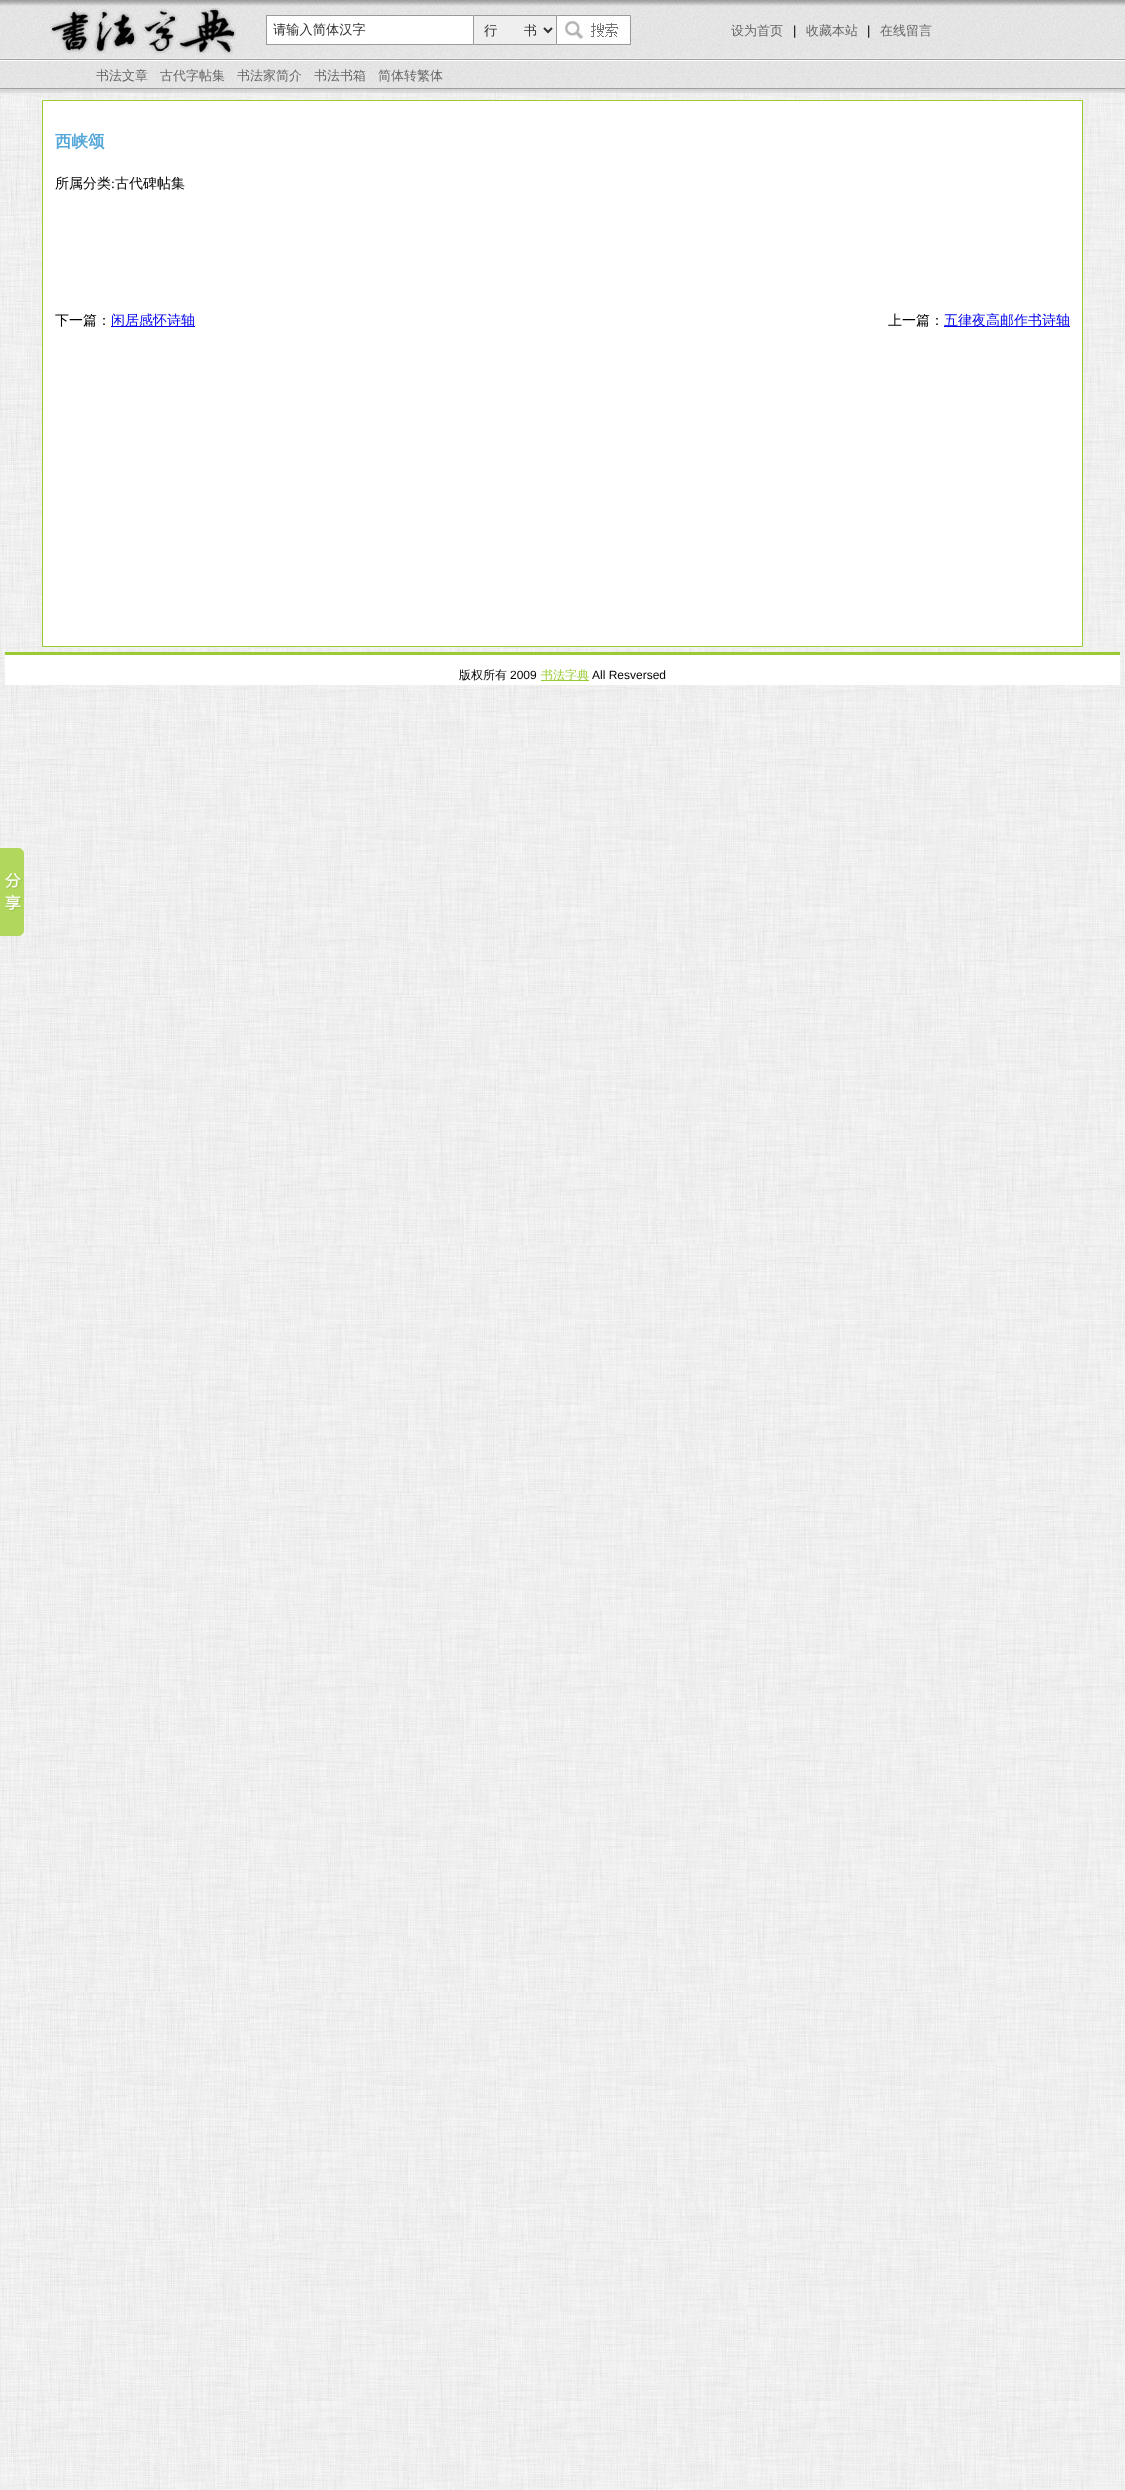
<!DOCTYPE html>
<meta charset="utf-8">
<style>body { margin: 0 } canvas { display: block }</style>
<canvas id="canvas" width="1125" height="2490"></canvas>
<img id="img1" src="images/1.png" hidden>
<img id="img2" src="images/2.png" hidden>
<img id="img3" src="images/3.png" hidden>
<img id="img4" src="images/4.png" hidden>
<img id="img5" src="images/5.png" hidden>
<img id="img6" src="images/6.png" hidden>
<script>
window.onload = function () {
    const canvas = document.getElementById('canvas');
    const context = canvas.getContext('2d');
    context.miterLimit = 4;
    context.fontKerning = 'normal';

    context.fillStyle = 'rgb(255, 255, 255)';
    context.fillRect(0, 0, 1125, 2490);
    context.drawImage(document.getElementById('img1'), 0, 89, 1125, 2401);
    context.drawImage(document.getElementById('img2'), 0, 0, 1125, 89);
    context.drawImage(document.getElementById('img3'), 50, 8, 186, 46);
    context.fillRect(267, 16, 206, 28);
    context.fillStyle = 'rgb(153, 153, 153)';
    context.fillRect(266, 15, 207, 1);
    context.fillRect(266, 44, 207, 1);
    context.fillRect(266, 15, 1, 30);
    context.fillStyle = 'rgb(239, 239, 239)';
    context.beginPath();
    context.rect(473.5, 15.5, 83, 29);
    context.fill();
    context.strokeStyle = 'rgb(153, 153, 153)';
    context.stroke();
    context.beginPath();
    context.moveTo(544, 28);
    context.lineTo(548, 32);
    context.lineTo(552, 28);
    context.strokeStyle = 'rgb(51, 51, 51)';
    context.lineWidth = 2;
    context.stroke();
    context.drawImage(document.getElementById('img4'), 557, 15, 74, 30);
    context.drawImage(document.getElementById('img5'), 0, 88, 1125, 5);
    context.fillStyle = 'rgb(255, 255, 255)';
    context.beginPath();
    context.rect(42.5, 100.5, 1040, 546);
    context.fill();
    context.strokeStyle = 'rgb(153, 204, 51)';
    context.lineWidth = 1;
    context.stroke();
    context.fillStyle = 'rgb(0, 0, 238)';
    context.fillRect(111, 326, 84, 1);
    context.fillRect(944, 326, 126, 1);
    context.fillStyle = 'rgb(255, 255, 255)';
    context.fillRect(5, 655, 1115, 30);
    context.fillStyle = 'rgb(153, 204, 51)';
    context.fillRect(5, 652, 1115, 3);
    context.fillRect(541, 680, 48, 1);
    context.drawImage(document.getElementById('img6'), 0, 848, 24, 88);
    context.font = '500 13.25px WenQuanYi Zen Hei';
    context.fillStyle = 'rgb(51, 51, 51)';
    context.fillText('请输入简体汉字', 273, 34);
    context.fillText('行　　书', 484, 35);
    context.font = '500 13px WenQuanYi Zen Hei';
    context.fillStyle = 'rgb(102, 102, 102)';
    context.fillText('设为首页', 731, 35);
    context.font = '13px Liberation Sans';
    context.fillStyle = 'rgb(0, 0, 0)';
    context.fillText('|', 793, 35);
    context.font = '500 13px WenQuanYi Zen Hei';
    context.fillStyle = 'rgb(102, 102, 102)';
    context.fillText('收藏本站', 806, 35);
    context.font = '13px Liberation Sans';
    context.fillStyle = 'rgb(0, 0, 0)';
    context.fillText('|', 867, 35);
    context.font = '500 13px WenQuanYi Zen Hei';
    context.fillStyle = 'rgb(102, 102, 102)';
    context.fillText('在线留言', 880, 35);
    context.fillText('书法文章', 96, 80);
    context.fillText('古代字帖集', 160, 80);
    context.fillText('书法家简介', 237, 80);
    context.fillText('书法书箱', 314, 80);
    context.fillText('简体转繁体', 378, 80);
    context.font = 'bold 16.5px WenQuanYi Zen Hei';
    context.fillStyle = 'rgb(85, 167, 217)';
    context.fillText('西峡颂', 55, 147);
    context.font = '500 14px WenQuanYi Zen Hei';
    context.fillStyle = 'rgb(0, 0, 0)';
    context.fillText('所属分类', 55, 188);
    context.font = '14px Liberation Serif';
    context.fillText(':', 111, 188);
    context.font = '500 14px WenQuanYi Zen Hei';
    context.fillText('古代碑帖集', 115, 188);
    context.fillText('下一篇：', 55, 325);
    context.fillStyle = 'rgb(0, 0, 238)';
    context.fillText('闲居感怀诗轴', 111, 325);
    context.fillStyle = 'rgb(0, 0, 0)';
    context.fillText('上一篇：', 888, 325);
    context.fillStyle = 'rgb(0, 0, 238)';
    context.fillText('五律夜高邮作书诗轴', 944, 325);
    context.font = '500 12px WenQuanYi Zen Hei';
    context.fillStyle = 'rgb(0, 0, 0)';
    context.fillText('版权所有', 459, 679);
    context.font = '12px Liberation Sans';
    context.fillText('2009', 510, 679);
    context.font = '500 12px WenQuanYi Zen Hei';
    context.fillStyle = 'rgb(153, 204, 51)';
    context.fillText('书法字典', 541, 679);
    context.font = '12px Liberation Sans';
    context.fillStyle = 'rgb(0, 0, 0)';
    context.fillText('All Resversed', 592, 679);
};
</script>
